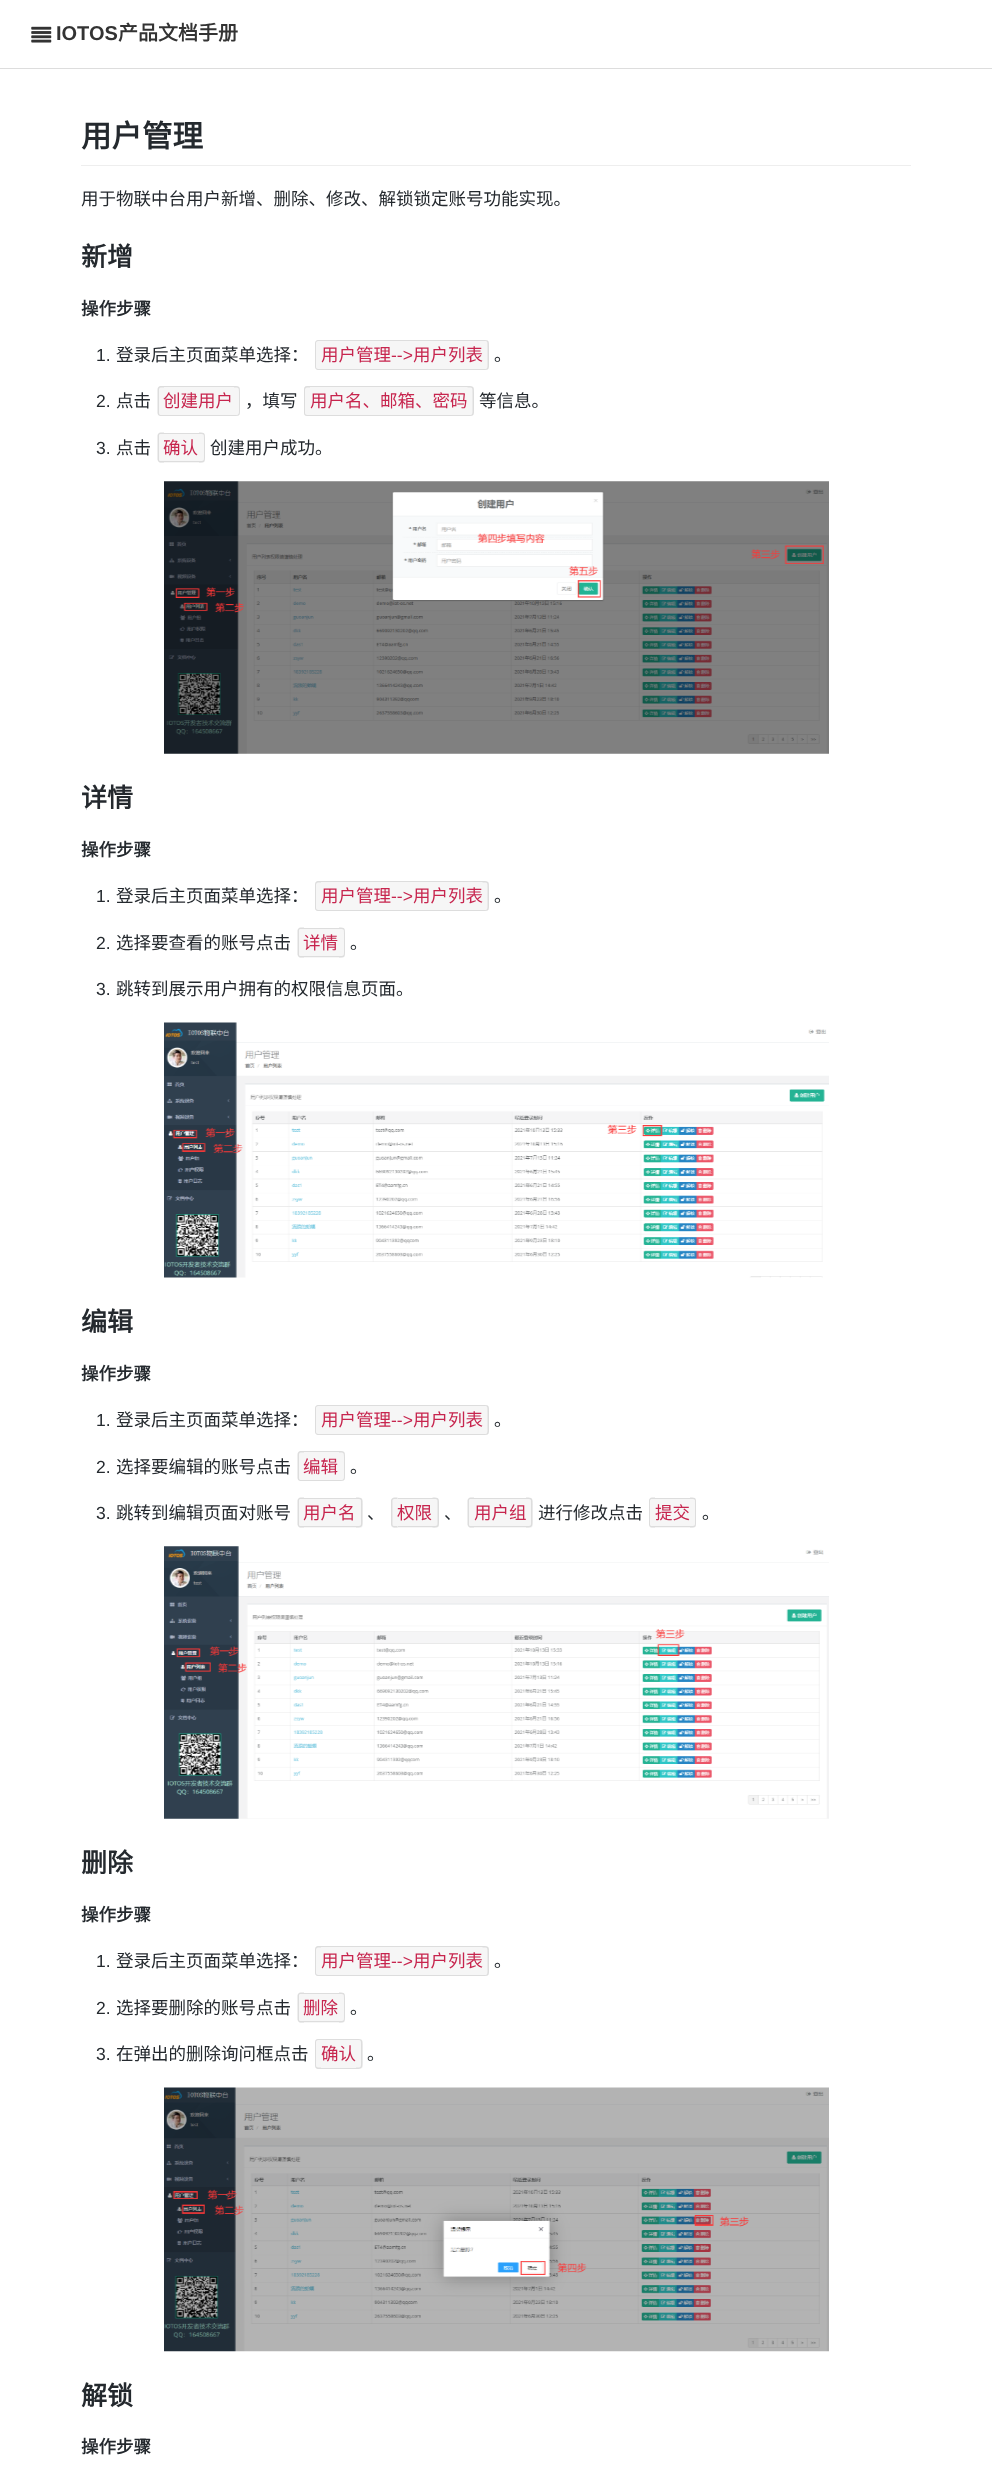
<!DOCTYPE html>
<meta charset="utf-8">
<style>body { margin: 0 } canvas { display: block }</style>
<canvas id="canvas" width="992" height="2475"></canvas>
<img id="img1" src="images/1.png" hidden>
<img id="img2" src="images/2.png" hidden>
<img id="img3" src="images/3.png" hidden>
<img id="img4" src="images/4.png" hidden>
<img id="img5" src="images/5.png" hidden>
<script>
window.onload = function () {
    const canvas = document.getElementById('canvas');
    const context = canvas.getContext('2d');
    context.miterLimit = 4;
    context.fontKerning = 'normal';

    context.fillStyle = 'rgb(255, 255, 255)';
    context.fillRect(0, 0, 992, 2475);
    context.drawImage(document.getElementById('img1'), 31, 26, 21, 17);
    context.fillStyle = 'rgb(221, 221, 221)';
    context.fillRect(0, 68, 992, 1);
    context.fillStyle = 'rgb(238, 238, 238)';
    context.fillRect(81, 165, 830, 1);
    context.fillStyle = 'rgb(246, 246, 246)';
    context.beginPath();
    context.roundRect(315, 340, 6, 30, [3, 0, 0, 3]);
    context.fill();
    context.fillStyle = 'rgb(221, 221, 221)';
    context.beginPath();
    context.moveTo(318, 340);
    context.lineTo(321, 340);
    context.lineTo(321, 370);
    context.lineTo(318, 370);
    context.bezierCurveTo(316.5, 370, 315, 368.5, 315, 367);
    context.lineTo(315, 343);
    context.bezierCurveTo(315, 341.5, 316.5, 340, 318, 340);
    context.closePath();
    context.moveTo(318, 341);
    context.lineTo(321, 341);
    context.lineTo(321, 369);
    context.lineTo(318, 369);
    context.bezierCurveTo(317, 369, 316, 368, 316, 367);
    context.lineTo(316, 343);
    context.bezierCurveTo(316, 342, 317, 341, 318, 341);
    context.closePath();
    context.fill('evenodd');
    context.fillRect(321, 340, 162, 1);
    context.fillStyle = 'rgb(246, 246, 246)';
    context.fillRect(321, 341, 162, 28);
    context.fillStyle = 'rgb(221, 221, 221)';
    context.fillRect(321, 369, 162, 1);
    context.fillStyle = 'rgb(246, 246, 246)';
    context.beginPath();
    context.roundRect(483, 340, 6, 30, [0, 3, 3, 0]);
    context.fill();
    context.fillStyle = 'rgb(221, 221, 221)';
    context.beginPath();
    context.moveTo(482.5, 340);
    context.bezierCurveTo(489, 340, 489, 340.5, 489, 347);
    context.lineTo(489, 363);
    context.bezierCurveTo(489, 369.5, 489, 370, 482.5, 370);
    context.closePath();
    context.moveTo(482.5, 341);
    context.bezierCurveTo(488, 341, 487.5, 341, 487.5, 347);
    context.lineTo(487.5, 363);
    context.bezierCurveTo(487.5, 369, 488, 369, 482.5, 369);
    context.closePath();
    context.fill('evenodd');
    context.fillStyle = 'rgb(246, 246, 246)';
    context.beginPath();
    context.roundRect(158, 386, 6, 30, [3, 0, 0, 3]);
    context.fill();
    context.fillStyle = 'rgb(221, 221, 221)';
    context.beginPath();
    context.moveTo(160.5, 386);
    context.lineTo(164, 386);
    context.lineTo(164, 416);
    context.lineTo(160.5, 416);
    context.bezierCurveTo(159, 416, 157.5, 415, 157.5, 413);
    context.lineTo(157.5, 389.5);
    context.bezierCurveTo(157.5, 387.5, 159, 386, 160.5, 386);
    context.closePath();
    context.moveTo(160.5, 387.5);
    context.lineTo(164, 387.5);
    context.lineTo(164, 415);
    context.lineTo(160.5, 415);
    context.bezierCurveTo(159.5, 415, 159, 414, 159, 413);
    context.lineTo(159, 389.5);
    context.bezierCurveTo(159, 388.5, 159.5, 387.5, 160.5, 387.5);
    context.closePath();
    context.fill('evenodd');
    context.fillStyle = 'rgb(246, 246, 246)';
    context.fillRect(164, 387, 70, 28);
    context.fillStyle = 'rgb(221, 221, 221)';
    context.fillRect(164, 386, 70, 1);
    context.fillRect(164, 415, 70, 1);
    context.fillStyle = 'rgb(246, 246, 246)';
    context.beginPath();
    context.roundRect(234, 386, 6, 30, [0, 3, 3, 0]);
    context.fill();
    context.fillStyle = 'rgb(221, 221, 221)';
    context.beginPath();
    context.moveTo(234, 386);
    context.bezierCurveTo(240, 386, 240, 387, 240, 393.5);
    context.lineTo(240, 409);
    context.bezierCurveTo(240, 415.5, 240, 416, 234, 416);
    context.closePath();
    context.moveTo(234, 387.5);
    context.bezierCurveTo(239, 387.5, 239, 387.5, 239, 393.5);
    context.lineTo(239, 409);
    context.bezierCurveTo(239, 415, 239, 415, 234, 415);
    context.closePath();
    context.fill('evenodd');
    context.fillStyle = 'rgb(246, 246, 246)';
    context.beginPath();
    context.roundRect(304, 386, 6, 30, [3, 0, 0, 3]);
    context.fill();
    context.fillStyle = 'rgb(221, 221, 221)';
    context.beginPath();
    context.moveTo(307, 386);
    context.lineTo(310, 386);
    context.lineTo(310, 416);
    context.lineTo(307, 416);
    context.bezierCurveTo(305, 416, 304, 415, 304, 413);
    context.lineTo(304, 389.5);
    context.bezierCurveTo(304, 387.5, 305, 386, 307, 386);
    context.closePath();
    context.moveTo(307, 387.5);
    context.lineTo(310, 387.5);
    context.lineTo(310, 415);
    context.lineTo(307, 415);
    context.bezierCurveTo(306, 415, 305, 414, 305, 413);
    context.lineTo(305, 389.5);
    context.bezierCurveTo(305, 388.5, 306, 387.5, 307, 387.5);
    context.closePath();
    context.fill('evenodd');
    context.fillStyle = 'rgb(246, 246, 246)';
    context.fillRect(310, 387, 158, 28);
    context.fillStyle = 'rgb(221, 221, 221)';
    context.fillRect(310, 386, 158, 1);
    context.fillRect(310, 415, 158, 1);
    context.fillStyle = 'rgb(246, 246, 246)';
    context.beginPath();
    context.roundRect(468, 386, 6, 30, [0, 3, 3, 0]);
    context.fill();
    context.fillStyle = 'rgb(221, 221, 221)';
    context.beginPath();
    context.moveTo(467.5, 386);
    context.bezierCurveTo(474, 386, 474, 387, 474, 393.5);
    context.lineTo(474, 409);
    context.bezierCurveTo(474, 415.5, 474, 416, 467.5, 416);
    context.closePath();
    context.moveTo(467.5, 387.5);
    context.bezierCurveTo(473, 387.5, 472.5, 387.5, 472.5, 393.5);
    context.lineTo(472.5, 409);
    context.bezierCurveTo(472.5, 415, 473, 415, 467.5, 415);
    context.closePath();
    context.fill('evenodd');
    context.fillStyle = 'rgb(246, 246, 246)';
    context.beginPath();
    context.roundRect(158, 433, 6, 30, [3, 0, 0, 3]);
    context.fill();
    context.fillStyle = 'rgb(221, 221, 221)';
    context.beginPath();
    context.moveTo(160.5, 432.5);
    context.lineTo(164, 432.5);
    context.lineTo(164, 462.5);
    context.lineTo(160.5, 462.5);
    context.bezierCurveTo(159, 462.5, 157.5, 461, 157.5, 459.5);
    context.lineTo(157.5, 435.5);
    context.bezierCurveTo(157.5, 434, 159, 432.5, 160.5, 432.5);
    context.closePath();
    context.moveTo(160.5, 434);
    context.lineTo(164, 434);
    context.lineTo(164, 461);
    context.lineTo(160.5, 461);
    context.bezierCurveTo(159.5, 461, 159, 460.5, 159, 459.5);
    context.lineTo(159, 435.5);
    context.bezierCurveTo(159, 434.5, 159.5, 434, 160.5, 434);
    context.closePath();
    context.fill('evenodd');
    context.fillStyle = 'rgb(246, 246, 246)';
    context.fillRect(164, 434, 35, 29);
    context.fillStyle = 'rgb(221, 221, 221)';
    context.fillRect(164, 433, 35, 1);
    context.fillRect(164, 461, 35, 1);
    context.fillStyle = 'rgb(246, 246, 246)';
    context.beginPath();
    context.roundRect(199, 433, 6, 30, [0, 3, 3, 0]);
    context.fill();
    context.fillStyle = 'rgb(221, 221, 221)';
    context.beginPath();
    context.moveTo(199, 432.5);
    context.bezierCurveTo(205, 432.5, 205, 433, 205, 439.5);
    context.lineTo(205, 455.5);
    context.bezierCurveTo(205, 462, 205, 462.5, 199, 462.5);
    context.closePath();
    context.moveTo(199, 434);
    context.bezierCurveTo(204, 434, 204, 433.5, 204, 439.5);
    context.lineTo(204, 455.5);
    context.bezierCurveTo(204, 461.5, 204, 461, 199, 461);
    context.closePath();
    context.fill('evenodd');
    context.drawImage(document.getElementById('img2'), 164, 481, 665, 273);
    context.fillStyle = 'rgb(246, 246, 246)';
    context.beginPath();
    context.roundRect(315, 881, 6, 30, [3, 0, 0, 3]);
    context.fill();
    context.fillStyle = 'rgb(221, 221, 221)';
    context.beginPath();
    context.moveTo(318, 881);
    context.lineTo(321, 881);
    context.lineTo(321, 911);
    context.lineTo(318, 911);
    context.bezierCurveTo(316.5, 911, 315, 910, 315, 908);
    context.lineTo(315, 884.5);
    context.bezierCurveTo(315, 882.5, 316.5, 881, 318, 881);
    context.closePath();
    context.moveTo(318, 882.5);
    context.lineTo(321, 882.5);
    context.lineTo(321, 910);
    context.lineTo(318, 910);
    context.bezierCurveTo(317, 910, 316, 909, 316, 908);
    context.lineTo(316, 884.5);
    context.bezierCurveTo(316, 883.5, 317, 882.5, 318, 882.5);
    context.closePath();
    context.fill('evenodd');
    context.fillRect(321, 881, 162, 1);
    context.fillStyle = 'rgb(246, 246, 246)';
    context.fillRect(321, 882, 162, 28);
    context.fillStyle = 'rgb(221, 221, 221)';
    context.fillRect(321, 910, 162, 1);
    context.fillStyle = 'rgb(246, 246, 246)';
    context.beginPath();
    context.roundRect(483, 881, 6, 30, [0, 3, 3, 0]);
    context.fill();
    context.fillStyle = 'rgb(221, 221, 221)';
    context.beginPath();
    context.moveTo(482.5, 881);
    context.bezierCurveTo(489, 881, 489, 882, 489, 888.5);
    context.lineTo(489, 904);
    context.bezierCurveTo(489, 910.5, 489, 911, 482.5, 911);
    context.closePath();
    context.moveTo(482.5, 882.5);
    context.bezierCurveTo(488, 882.5, 487.5, 882.5, 487.5, 888.5);
    context.lineTo(487.5, 904);
    context.bezierCurveTo(487.5, 910, 488, 910, 482.5, 910);
    context.closePath();
    context.fill('evenodd');
    context.fillStyle = 'rgb(246, 246, 246)';
    context.beginPath();
    context.roundRect(298, 928, 6, 30, [3, 0, 0, 3]);
    context.fill();
    context.fillStyle = 'rgb(221, 221, 221)';
    context.beginPath();
    context.moveTo(300.5, 927.5);
    context.lineTo(304, 927.5);
    context.lineTo(304, 957.5);
    context.lineTo(300.5, 957.5);
    context.bezierCurveTo(299, 957.5, 297.5, 956, 297.5, 954.5);
    context.lineTo(297.5, 930.5);
    context.bezierCurveTo(297.5, 929, 299, 927.5, 300.5, 927.5);
    context.closePath();
    context.moveTo(300.5, 929);
    context.lineTo(304, 929);
    context.lineTo(304, 956);
    context.lineTo(300.5, 956);
    context.bezierCurveTo(299.5, 956, 299, 955.5, 299, 954.5);
    context.lineTo(299, 930.5);
    context.bezierCurveTo(299, 929.5, 299.5, 929, 300.5, 929);
    context.closePath();
    context.fill('evenodd');
    context.fillStyle = 'rgb(246, 246, 246)';
    context.fillRect(304, 929, 35, 29);
    context.fillStyle = 'rgb(221, 221, 221)';
    context.fillRect(304, 928, 35, 1);
    context.fillRect(304, 956, 35, 1);
    context.fillStyle = 'rgb(246, 246, 246)';
    context.beginPath();
    context.roundRect(339, 928, 6, 30, [0, 3, 3, 0]);
    context.fill();
    context.fillStyle = 'rgb(221, 221, 221)';
    context.beginPath();
    context.moveTo(339, 927.5);
    context.bezierCurveTo(345, 927.5, 345, 928, 345, 934.5);
    context.lineTo(345, 950.5);
    context.bezierCurveTo(345, 957, 345, 957.5, 339, 957.5);
    context.closePath();
    context.moveTo(339, 929);
    context.bezierCurveTo(344, 929, 344, 928.5, 344, 934.5);
    context.lineTo(344, 950.5);
    context.bezierCurveTo(344, 956.5, 344, 956, 339, 956);
    context.closePath();
    context.fill('evenodd');
    context.drawImage(document.getElementById('img3'), 164, 1022, 665, 256);
    context.fillStyle = 'rgb(246, 246, 246)';
    context.beginPath();
    context.roundRect(315, 1405, 6, 30, [3, 0, 0, 3]);
    context.fill();
    context.fillStyle = 'rgb(221, 221, 221)';
    context.beginPath();
    context.moveTo(318, 1405);
    context.lineTo(321, 1405);
    context.lineTo(321, 1435);
    context.lineTo(318, 1435);
    context.bezierCurveTo(316.5, 1435, 315, 1433.5, 315, 1432);
    context.lineTo(315, 1408);
    context.bezierCurveTo(315, 1406.5, 316.5, 1405, 318, 1405);
    context.closePath();
    context.moveTo(318, 1406);
    context.lineTo(321, 1406);
    context.lineTo(321, 1434);
    context.lineTo(318, 1434);
    context.bezierCurveTo(317, 1434, 316, 1433, 316, 1432);
    context.lineTo(316, 1408);
    context.bezierCurveTo(316, 1407, 317, 1406, 318, 1406);
    context.closePath();
    context.fill('evenodd');
    context.fillRect(321, 1405, 162, 1);
    context.fillStyle = 'rgb(246, 246, 246)';
    context.fillRect(321, 1406, 162, 28);
    context.fillStyle = 'rgb(221, 221, 221)';
    context.fillRect(321, 1434, 162, 1);
    context.fillStyle = 'rgb(246, 246, 246)';
    context.beginPath();
    context.roundRect(483, 1405, 6, 30, [0, 3, 3, 0]);
    context.fill();
    context.fillStyle = 'rgb(221, 221, 221)';
    context.beginPath();
    context.moveTo(482.5, 1405);
    context.bezierCurveTo(489, 1405, 489, 1405.5, 489, 1412);
    context.lineTo(489, 1428);
    context.bezierCurveTo(489, 1434.5, 489, 1435, 482.5, 1435);
    context.closePath();
    context.moveTo(482.5, 1406);
    context.bezierCurveTo(488, 1406, 487.5, 1406, 487.5, 1412);
    context.lineTo(487.5, 1428);
    context.bezierCurveTo(487.5, 1434, 488, 1434, 482.5, 1434);
    context.closePath();
    context.fill('evenodd');
    context.fillStyle = 'rgb(246, 246, 246)';
    context.beginPath();
    context.roundRect(298, 1451, 6, 30, [3, 0, 0, 3]);
    context.fill();
    context.fillStyle = 'rgb(221, 221, 221)';
    context.beginPath();
    context.moveTo(300.5, 1451);
    context.lineTo(304, 1451);
    context.lineTo(304, 1481);
    context.lineTo(300.5, 1481);
    context.bezierCurveTo(299, 1481, 297.5, 1480, 297.5, 1478);
    context.lineTo(297.5, 1454.5);
    context.bezierCurveTo(297.5, 1452.5, 299, 1451, 300.5, 1451);
    context.closePath();
    context.moveTo(300.5, 1452.5);
    context.lineTo(304, 1452.5);
    context.lineTo(304, 1480);
    context.lineTo(300.5, 1480);
    context.bezierCurveTo(299.5, 1480, 299, 1479, 299, 1478);
    context.lineTo(299, 1454.5);
    context.bezierCurveTo(299, 1453.5, 299.5, 1452.5, 300.5, 1452.5);
    context.closePath();
    context.fill('evenodd');
    context.fillStyle = 'rgb(246, 246, 246)';
    context.fillRect(304, 1452, 35, 28);
    context.fillStyle = 'rgb(221, 221, 221)';
    context.fillRect(304, 1451, 35, 1);
    context.fillRect(304, 1480, 35, 1);
    context.fillStyle = 'rgb(246, 246, 246)';
    context.beginPath();
    context.roundRect(339, 1451, 6, 30, [0, 3, 3, 0]);
    context.fill();
    context.fillStyle = 'rgb(221, 221, 221)';
    context.beginPath();
    context.moveTo(339, 1451);
    context.bezierCurveTo(345, 1451, 345, 1452, 345, 1458.5);
    context.lineTo(345, 1474);
    context.bezierCurveTo(345, 1480.5, 345, 1481, 339, 1481);
    context.closePath();
    context.moveTo(339, 1452.5);
    context.bezierCurveTo(344, 1452.5, 344, 1452.5, 344, 1458.5);
    context.lineTo(344, 1474);
    context.bezierCurveTo(344, 1480, 344, 1480, 339, 1480);
    context.closePath();
    context.fill('evenodd');
    context.fillStyle = 'rgb(246, 246, 246)';
    context.beginPath();
    context.roundRect(298, 1498, 6, 30, [3, 0, 0, 3]);
    context.fill();
    context.fillStyle = 'rgb(221, 221, 221)';
    context.beginPath();
    context.moveTo(300.5, 1497.5);
    context.lineTo(304, 1497.5);
    context.lineTo(304, 1527.5);
    context.lineTo(300.5, 1527.5);
    context.bezierCurveTo(299, 1527.5, 297.5, 1526, 297.5, 1524.5);
    context.lineTo(297.5, 1500.5);
    context.bezierCurveTo(297.5, 1499, 299, 1497.5, 300.5, 1497.5);
    context.closePath();
    context.moveTo(300.5, 1499);
    context.lineTo(304, 1499);
    context.lineTo(304, 1526);
    context.lineTo(300.5, 1526);
    context.bezierCurveTo(299.5, 1526, 299, 1525.5, 299, 1524.5);
    context.lineTo(299, 1500.5);
    context.bezierCurveTo(299, 1499.5, 299.5, 1499, 300.5, 1499);
    context.closePath();
    context.fill('evenodd');
    context.fillStyle = 'rgb(246, 246, 246)';
    context.fillRect(304, 1499, 52, 29);
    context.fillStyle = 'rgb(221, 221, 221)';
    context.fillRect(304, 1498, 52, 1);
    context.fillRect(304, 1526, 52, 1);
    context.fillStyle = 'rgb(246, 246, 246)';
    context.beginPath();
    context.roundRect(356, 1498, 7, 30, [0, 3.5, 3.5, 0]);
    context.fill();
    context.fillStyle = 'rgb(221, 221, 221)';
    context.beginPath();
    context.moveTo(356, 1497.5);
    context.bezierCurveTo(362.5, 1497.5, 362.5, 1498, 362.5, 1504.5);
    context.lineTo(362.5, 1520.5);
    context.bezierCurveTo(362.5, 1527, 362.5, 1527.5, 356, 1527.5);
    context.closePath();
    context.moveTo(356, 1499);
    context.bezierCurveTo(361.5, 1499, 361, 1498.5, 361, 1504.5);
    context.lineTo(361, 1520.5);
    context.bezierCurveTo(361, 1526.5, 361.5, 1526, 356, 1526);
    context.closePath();
    context.fill('evenodd');
    context.fillStyle = 'rgb(246, 246, 246)';
    context.beginPath();
    context.roundRect(391, 1498, 7, 30, [3.5, 0, 0, 3.5]);
    context.fill();
    context.fillStyle = 'rgb(221, 221, 221)';
    context.beginPath();
    context.moveTo(394.5, 1497.5);
    context.lineTo(397.5, 1497.5);
    context.lineTo(397.5, 1527.5);
    context.lineTo(394.5, 1527.5);
    context.bezierCurveTo(392.5, 1527.5, 391, 1526, 391, 1524.5);
    context.lineTo(391, 1500.5);
    context.bezierCurveTo(391, 1499, 392.5, 1497.5, 394.5, 1497.5);
    context.closePath();
    context.moveTo(394.5, 1499);
    context.lineTo(397.5, 1499);
    context.lineTo(397.5, 1526);
    context.lineTo(394.5, 1526);
    context.bezierCurveTo(393.5, 1526, 392.5, 1525.5, 392.5, 1524.5);
    context.lineTo(392.5, 1500.5);
    context.bezierCurveTo(392.5, 1499.5, 393.5, 1499, 394.5, 1499);
    context.closePath();
    context.fill('evenodd');
    context.fillStyle = 'rgb(246, 246, 246)';
    context.fillRect(398, 1499, 35, 29);
    context.fillStyle = 'rgb(221, 221, 221)';
    context.fillRect(398, 1498, 35, 1);
    context.fillRect(398, 1526, 35, 1);
    context.fillStyle = 'rgb(246, 246, 246)';
    context.beginPath();
    context.roundRect(433, 1498, 6, 30, [0, 3, 3, 0]);
    context.fill();
    context.fillStyle = 'rgb(221, 221, 221)';
    context.beginPath();
    context.moveTo(432.5, 1497.5);
    context.bezierCurveTo(439, 1497.5, 439, 1498, 439, 1504.5);
    context.lineTo(439, 1520.5);
    context.bezierCurveTo(439, 1527, 439, 1527.5, 432.5, 1527.5);
    context.closePath();
    context.moveTo(432.5, 1499);
    context.bezierCurveTo(438, 1499, 437.5, 1498.5, 437.5, 1504.5);
    context.lineTo(437.5, 1520.5);
    context.bezierCurveTo(437.5, 1526.5, 438, 1526, 432.5, 1526);
    context.closePath();
    context.fill('evenodd');
    context.fillStyle = 'rgb(246, 246, 246)';
    context.beginPath();
    context.roundRect(468, 1498, 6, 30, [3, 0, 0, 3]);
    context.fill();
    context.fillStyle = 'rgb(221, 221, 221)';
    context.beginPath();
    context.moveTo(470.5, 1497.5);
    context.lineTo(474, 1497.5);
    context.lineTo(474, 1527.5);
    context.lineTo(470.5, 1527.5);
    context.bezierCurveTo(469, 1527.5, 467.5, 1526, 467.5, 1524.5);
    context.lineTo(467.5, 1500.5);
    context.bezierCurveTo(467.5, 1499, 469, 1497.5, 470.5, 1497.5);
    context.closePath();
    context.moveTo(470.5, 1499);
    context.lineTo(474, 1499);
    context.lineTo(474, 1526);
    context.lineTo(470.5, 1526);
    context.bezierCurveTo(469.5, 1526, 469, 1525.5, 469, 1524.5);
    context.lineTo(469, 1500.5);
    context.bezierCurveTo(469, 1499.5, 469.5, 1499, 470.5, 1499);
    context.closePath();
    context.fill('evenodd');
    context.fillStyle = 'rgb(246, 246, 246)';
    context.fillRect(474, 1499, 52, 29);
    context.fillStyle = 'rgb(221, 221, 221)';
    context.fillRect(474, 1498, 52, 1);
    context.fillRect(474, 1526, 52, 1);
    context.fillStyle = 'rgb(246, 246, 246)';
    context.beginPath();
    context.roundRect(526, 1498, 7, 30, [0, 3.5, 3.5, 0]);
    context.fill();
    context.fillStyle = 'rgb(221, 221, 221)';
    context.beginPath();
    context.moveTo(526, 1497.5);
    context.bezierCurveTo(532.5, 1497.5, 532.5, 1498, 532.5, 1504.5);
    context.lineTo(532.5, 1520.5);
    context.bezierCurveTo(532.5, 1527, 532.5, 1527.5, 526, 1527.5);
    context.closePath();
    context.moveTo(526, 1499);
    context.bezierCurveTo(531.5, 1499, 531, 1498.5, 531, 1504.5);
    context.lineTo(531, 1520.5);
    context.bezierCurveTo(531, 1526.5, 531.5, 1526, 526, 1526);
    context.closePath();
    context.fill('evenodd');
    context.fillStyle = 'rgb(246, 246, 246)';
    context.beginPath();
    context.roundRect(649, 1498, 6, 30, [3, 0, 0, 3]);
    context.fill();
    context.fillStyle = 'rgb(221, 221, 221)';
    context.beginPath();
    context.moveTo(652, 1497.5);
    context.lineTo(655, 1497.5);
    context.lineTo(655, 1527.5);
    context.lineTo(652, 1527.5);
    context.bezierCurveTo(650, 1527.5, 649, 1526, 649, 1524.5);
    context.lineTo(649, 1500.5);
    context.bezierCurveTo(649, 1499, 650, 1497.5, 652, 1497.5);
    context.closePath();
    context.moveTo(652, 1499);
    context.lineTo(655, 1499);
    context.lineTo(655, 1526);
    context.lineTo(652, 1526);
    context.bezierCurveTo(651, 1526, 650, 1525.5, 650, 1524.5);
    context.lineTo(650, 1500.5);
    context.bezierCurveTo(650, 1499.5, 651, 1499, 652, 1499);
    context.closePath();
    context.fill('evenodd');
    context.fillStyle = 'rgb(246, 246, 246)';
    context.fillRect(655, 1499, 35, 29);
    context.fillStyle = 'rgb(221, 221, 221)';
    context.fillRect(655, 1498, 35, 1);
    context.fillRect(655, 1526, 35, 1);
    context.fillStyle = 'rgb(246, 246, 246)';
    context.beginPath();
    context.roundRect(690, 1498, 6, 30, [0, 3, 3, 0]);
    context.fill();
    context.fillStyle = 'rgb(221, 221, 221)';
    context.beginPath();
    context.moveTo(690, 1497.5);
    context.bezierCurveTo(696.5, 1497.5, 696, 1498, 696, 1504.5);
    context.lineTo(696, 1520.5);
    context.bezierCurveTo(696, 1527, 696.5, 1527.5, 690, 1527.5);
    context.closePath();
    context.moveTo(690, 1499);
    context.bezierCurveTo(695.5, 1499, 695, 1498.5, 695, 1504.5);
    context.lineTo(695, 1520.5);
    context.bezierCurveTo(695, 1526.5, 695.5, 1526, 690, 1526);
    context.closePath();
    context.fill('evenodd');
    context.drawImage(document.getElementById('img4'), 164, 1546, 665, 273);
    context.fillStyle = 'rgb(246, 246, 246)';
    context.beginPath();
    context.roundRect(315, 1946, 6, 30, [3, 0, 0, 3]);
    context.fill();
    context.fillStyle = 'rgb(221, 221, 221)';
    context.beginPath();
    context.moveTo(318, 1946);
    context.lineTo(321, 1946);
    context.lineTo(321, 1976);
    context.lineTo(318, 1976);
    context.bezierCurveTo(316.5, 1976, 315, 1975, 315, 1973);
    context.lineTo(315, 1949.5);
    context.bezierCurveTo(315, 1947.5, 316.5, 1946, 318, 1946);
    context.closePath();
    context.moveTo(318, 1947.5);
    context.lineTo(321, 1947.5);
    context.lineTo(321, 1975);
    context.lineTo(318, 1975);
    context.bezierCurveTo(317, 1975, 316, 1974, 316, 1973);
    context.lineTo(316, 1949.5);
    context.bezierCurveTo(316, 1948.5, 317, 1947.5, 318, 1947.5);
    context.closePath();
    context.fill('evenodd');
    context.fillRect(321, 1946, 162, 1);
    context.fillStyle = 'rgb(246, 246, 246)';
    context.fillRect(321, 1947, 162, 28);
    context.fillStyle = 'rgb(221, 221, 221)';
    context.fillRect(321, 1975, 162, 1);
    context.fillStyle = 'rgb(246, 246, 246)';
    context.beginPath();
    context.roundRect(483, 1946, 6, 30, [0, 3, 3, 0]);
    context.fill();
    context.fillStyle = 'rgb(221, 221, 221)';
    context.beginPath();
    context.moveTo(482.5, 1946);
    context.bezierCurveTo(489, 1946, 489, 1947, 489, 1953.5);
    context.lineTo(489, 1969);
    context.bezierCurveTo(489, 1975.5, 489, 1976, 482.5, 1976);
    context.closePath();
    context.moveTo(482.5, 1947.5);
    context.bezierCurveTo(488, 1947.5, 487.5, 1947.5, 487.5, 1953.5);
    context.lineTo(487.5, 1969);
    context.bezierCurveTo(487.5, 1975, 488, 1975, 482.5, 1975);
    context.closePath();
    context.fill('evenodd');
    context.fillStyle = 'rgb(246, 246, 246)';
    context.beginPath();
    context.roundRect(298, 1993, 6, 30, [3, 0, 0, 3]);
    context.fill();
    context.fillStyle = 'rgb(221, 221, 221)';
    context.beginPath();
    context.moveTo(300.5, 1992.5);
    context.lineTo(304, 1992.5);
    context.lineTo(304, 2022.5);
    context.lineTo(300.5, 2022.5);
    context.bezierCurveTo(299, 2022.5, 297.5, 2021, 297.5, 2019.5);
    context.lineTo(297.5, 1995.5);
    context.bezierCurveTo(297.5, 1994, 299, 1992.5, 300.5, 1992.5);
    context.closePath();
    context.moveTo(300.5, 1994);
    context.lineTo(304, 1994);
    context.lineTo(304, 2021);
    context.lineTo(300.5, 2021);
    context.bezierCurveTo(299.5, 2021, 299, 2020.5, 299, 2019.5);
    context.lineTo(299, 1995.5);
    context.bezierCurveTo(299, 1994.5, 299.5, 1994, 300.5, 1994);
    context.closePath();
    context.fill('evenodd');
    context.fillStyle = 'rgb(246, 246, 246)';
    context.fillRect(304, 1994, 35, 29);
    context.fillStyle = 'rgb(221, 221, 221)';
    context.fillRect(304, 1993, 35, 1);
    context.fillRect(304, 2021, 35, 1);
    context.fillStyle = 'rgb(246, 246, 246)';
    context.beginPath();
    context.roundRect(339, 1993, 6, 30, [0, 3, 3, 0]);
    context.fill();
    context.fillStyle = 'rgb(221, 221, 221)';
    context.beginPath();
    context.moveTo(339, 1992.5);
    context.bezierCurveTo(345, 1992.5, 345, 1993, 345, 1999.5);
    context.lineTo(345, 2015.5);
    context.bezierCurveTo(345, 2022, 345, 2022.5, 339, 2022.5);
    context.closePath();
    context.moveTo(339, 1994);
    context.bezierCurveTo(344, 1994, 344, 1993.5, 344, 1999.5);
    context.lineTo(344, 2015.5);
    context.bezierCurveTo(344, 2021.5, 344, 2021, 339, 2021);
    context.closePath();
    context.fill('evenodd');
    context.fillStyle = 'rgb(246, 246, 246)';
    context.beginPath();
    context.roundRect(315, 2039, 6, 30, [3, 0, 0, 3]);
    context.fill();
    context.fillStyle = 'rgb(221, 221, 221)';
    context.beginPath();
    context.moveTo(318, 2039);
    context.lineTo(321, 2039);
    context.lineTo(321, 2069);
    context.lineTo(318, 2069);
    context.bezierCurveTo(316.5, 2069, 315, 2067.5, 315, 2065.5);
    context.lineTo(315, 2042);
    context.bezierCurveTo(315, 2040, 316.5, 2039, 318, 2039);
    context.closePath();
    context.moveTo(318, 2040);
    context.lineTo(321, 2040);
    context.lineTo(321, 2067.5);
    context.lineTo(318, 2067.5);
    context.bezierCurveTo(317, 2067.5, 316, 2066.5, 316, 2065.5);
    context.lineTo(316, 2042);
    context.bezierCurveTo(316, 2041, 317, 2040, 318, 2040);
    context.closePath();
    context.fill('evenodd');
    context.fillStyle = 'rgb(246, 246, 246)';
    context.fillRect(321, 2040, 35, 28);
    context.fillStyle = 'rgb(221, 221, 221)';
    context.fillRect(321, 2039, 35, 1);
    context.fillRect(321, 2068, 35, 1);
    context.fillStyle = 'rgb(246, 246, 246)';
    context.beginPath();
    context.roundRect(356, 2039, 7, 30, [0, 3.5, 3.5, 0]);
    context.fill();
    context.fillStyle = 'rgb(221, 221, 221)';
    context.beginPath();
    context.moveTo(356, 2039);
    context.bezierCurveTo(362.5, 2039, 362.5, 2039.5, 362.5, 2046);
    context.lineTo(362.5, 2061.5);
    context.bezierCurveTo(362.5, 2068, 362.5, 2069, 356, 2069);
    context.closePath();
    context.moveTo(356, 2040);
    context.bezierCurveTo(361.5, 2040, 361, 2040, 361, 2046);
    context.lineTo(361, 2061.5);
    context.bezierCurveTo(361, 2067.5, 361.5, 2067.5, 356, 2067.5);
    context.closePath();
    context.fill('evenodd');
    context.drawImage(document.getElementById('img5'), 164, 2087, 665, 265);
    context.font = 'bold 20px Liberation Sans';
    context.fillStyle = 'rgb(51, 51, 51)';
    context.fillText('IOTOS', 56, 40);
    context.font = 'bold 20px Noto Sans CJK SC';
    context.fillText('产品文档手册', 118, 40);
    context.font = 'bold 30.5px Noto Sans CJK SC';
    context.fillStyle = 'rgb(36, 41, 46)';
    context.fillText('用户管理', 81, 147);
    context.font = '17.5px Noto Sans CJK SC';
    context.fillText('用于物联中台用户新增、删除、修改、解锁锁定账号功能实现。', 81, 205);
    context.font = 'bold 26px Noto Sans CJK SC';
    context.fillText('新增', 81, 266);
    context.font = 'bold 17.5px Noto Sans CJK SC';
    context.fillText('操作步骤', 81, 315);
    context.font = '17.5px Liberation Sans';
    context.fillText('1.', 96, 361);
    context.font = '17.5px Noto Sans CJK SC';
    context.fillText('登录后主页面菜单选择：', 116, 361);
    context.fillStyle = 'rgb(199, 37, 78)';
    context.fillText('用户管理', 321, 361);
    context.font = '17.5px Liberation Sans';
    context.fillText('-->', 391, 361);
    context.font = '17.5px Noto Sans CJK SC';
    context.fillText('用户列表', 413, 361);
    context.fillStyle = 'rgb(36, 41, 46)';
    context.fillText('。', 494, 361);
    context.font = '17.5px Liberation Sans';
    context.fillText('2.', 96, 407);
    context.font = '17.5px Noto Sans CJK SC';
    context.fillText('点击', 116, 407);
    context.fillStyle = 'rgb(199, 37, 78)';
    context.fillText('创建用户', 163, 407);
    context.fillStyle = 'rgb(36, 41, 46)';
    context.fillText('，填写', 245, 407);
    context.fillStyle = 'rgb(199, 37, 78)';
    context.fillText('用户名、邮箱、密码', 310, 407);
    context.fillStyle = 'rgb(36, 41, 46)';
    context.fillText('等信息。', 479, 407);
    context.font = '17.5px Liberation Sans';
    context.fillText('3.', 96, 454);
    context.font = '17.5px Noto Sans CJK SC';
    context.fillText('点击', 116, 454);
    context.fillStyle = 'rgb(199, 37, 78)';
    context.fillText('确认', 163, 454);
    context.fillStyle = 'rgb(36, 41, 46)';
    context.fillText('创建用户成功。', 210, 454);
    context.font = 'bold 26px Noto Sans CJK SC';
    context.fillText('详情', 81, 807);
    context.font = 'bold 17.5px Noto Sans CJK SC';
    context.fillText('操作步骤', 81, 856);
    context.font = '17.5px Liberation Sans';
    context.fillText('1.', 96, 902);
    context.font = '17.5px Noto Sans CJK SC';
    context.fillText('登录后主页面菜单选择：', 116, 902);
    context.fillStyle = 'rgb(199, 37, 78)';
    context.fillText('用户管理', 321, 902);
    context.font = '17.5px Liberation Sans';
    context.fillText('-->', 391, 902);
    context.font = '17.5px Noto Sans CJK SC';
    context.fillText('用户列表', 413, 902);
    context.fillStyle = 'rgb(36, 41, 46)';
    context.fillText('。', 494, 902);
    context.font = '17.5px Liberation Sans';
    context.fillText('2.', 96, 949);
    context.font = '17.5px Noto Sans CJK SC';
    context.fillText('选择要查看的账号点击', 116, 949);
    context.fillStyle = 'rgb(199, 37, 78)';
    context.fillText('详情', 303, 949);
    context.fillStyle = 'rgb(36, 41, 46)';
    context.fillText('。', 350, 949);
    context.font = '17.5px Liberation Sans';
    context.fillText('3.', 96, 995);
    context.font = '17.5px Noto Sans CJK SC';
    context.fillText('跳转到展示用户拥有的权限信息页面。', 116, 995);
    context.font = 'bold 26px Noto Sans CJK SC';
    context.fillText('编辑', 81, 1331);
    context.font = 'bold 17.5px Noto Sans CJK SC';
    context.fillText('操作步骤', 81, 1380);
    context.font = '17.5px Liberation Sans';
    context.fillText('1.', 96, 1426);
    context.font = '17.5px Noto Sans CJK SC';
    context.fillText('登录后主页面菜单选择：', 116, 1426);
    context.fillStyle = 'rgb(199, 37, 78)';
    context.fillText('用户管理', 321, 1426);
    context.font = '17.5px Liberation Sans';
    context.fillText('-->', 391, 1426);
    context.font = '17.5px Noto Sans CJK SC';
    context.fillText('用户列表', 413, 1426);
    context.fillStyle = 'rgb(36, 41, 46)';
    context.fillText('。', 494, 1426);
    context.font = '17.5px Liberation Sans';
    context.fillText('2.', 96, 1473);
    context.font = '17.5px Noto Sans CJK SC';
    context.fillText('选择要编辑的账号点击', 116, 1473);
    context.fillStyle = 'rgb(199, 37, 78)';
    context.fillText('编辑', 303, 1473);
    context.fillStyle = 'rgb(36, 41, 46)';
    context.fillText('。', 350, 1473);
    context.font = '17.5px Liberation Sans';
    context.fillText('3.', 96, 1519);
    context.font = '17.5px Noto Sans CJK SC';
    context.fillText('跳转到编辑页面对账号', 116, 1519);
    context.fillStyle = 'rgb(199, 37, 78)';
    context.fillText('用户名', 303, 1519);
    context.fillStyle = 'rgb(36, 41, 46)';
    context.fillText('、', 367, 1519);
    context.fillStyle = 'rgb(199, 37, 78)';
    context.fillText('权限', 397, 1519);
    context.fillStyle = 'rgb(36, 41, 46)';
    context.fillText('、', 444, 1519);
    context.fillStyle = 'rgb(199, 37, 78)';
    context.fillText('用户组', 474, 1519);
    context.fillStyle = 'rgb(36, 41, 46)';
    context.fillText('进行修改点击', 538, 1519);
    context.fillStyle = 'rgb(199, 37, 78)';
    context.fillText('提交', 655, 1519);
    context.fillStyle = 'rgb(36, 41, 46)';
    context.fillText('。', 702, 1519);
    context.font = 'bold 26px Noto Sans CJK SC';
    context.fillText('删除', 81, 1872);
    context.font = 'bold 17.5px Noto Sans CJK SC';
    context.fillText('操作步骤', 81, 1921);
    context.font = '17.5px Liberation Sans';
    context.fillText('1.', 96, 1967);
    context.font = '17.5px Noto Sans CJK SC';
    context.fillText('登录后主页面菜单选择：', 116, 1967);
    context.fillStyle = 'rgb(199, 37, 78)';
    context.fillText('用户管理', 321, 1967);
    context.font = '17.5px Liberation Sans';
    context.fillText('-->', 391, 1967);
    context.font = '17.5px Noto Sans CJK SC';
    context.fillText('用户列表', 413, 1967);
    context.fillStyle = 'rgb(36, 41, 46)';
    context.fillText('。', 494, 1967);
    context.font = '17.5px Liberation Sans';
    context.fillText('2.', 96, 2014);
    context.font = '17.5px Noto Sans CJK SC';
    context.fillText('选择要删除的账号点击', 116, 2014);
    context.fillStyle = 'rgb(199, 37, 78)';
    context.fillText('删除', 303, 2014);
    context.fillStyle = 'rgb(36, 41, 46)';
    context.fillText('。', 350, 2014);
    context.font = '17.5px Liberation Sans';
    context.fillText('3.', 96, 2060);
    context.font = '17.5px Noto Sans CJK SC';
    context.fillText('在弹出的删除询问框点击', 116, 2060);
    context.fillStyle = 'rgb(199, 37, 78)';
    context.fillText('确认', 321, 2060);
    context.fillStyle = 'rgb(36, 41, 46)';
    context.fillText('。', 367, 2060);
    context.font = 'bold 26px Noto Sans CJK SC';
    context.fillText('解锁', 81, 2405);
    context.font = 'bold 17.5px Noto Sans CJK SC';
    context.fillText('操作步骤', 81, 2453);
};
</script>
